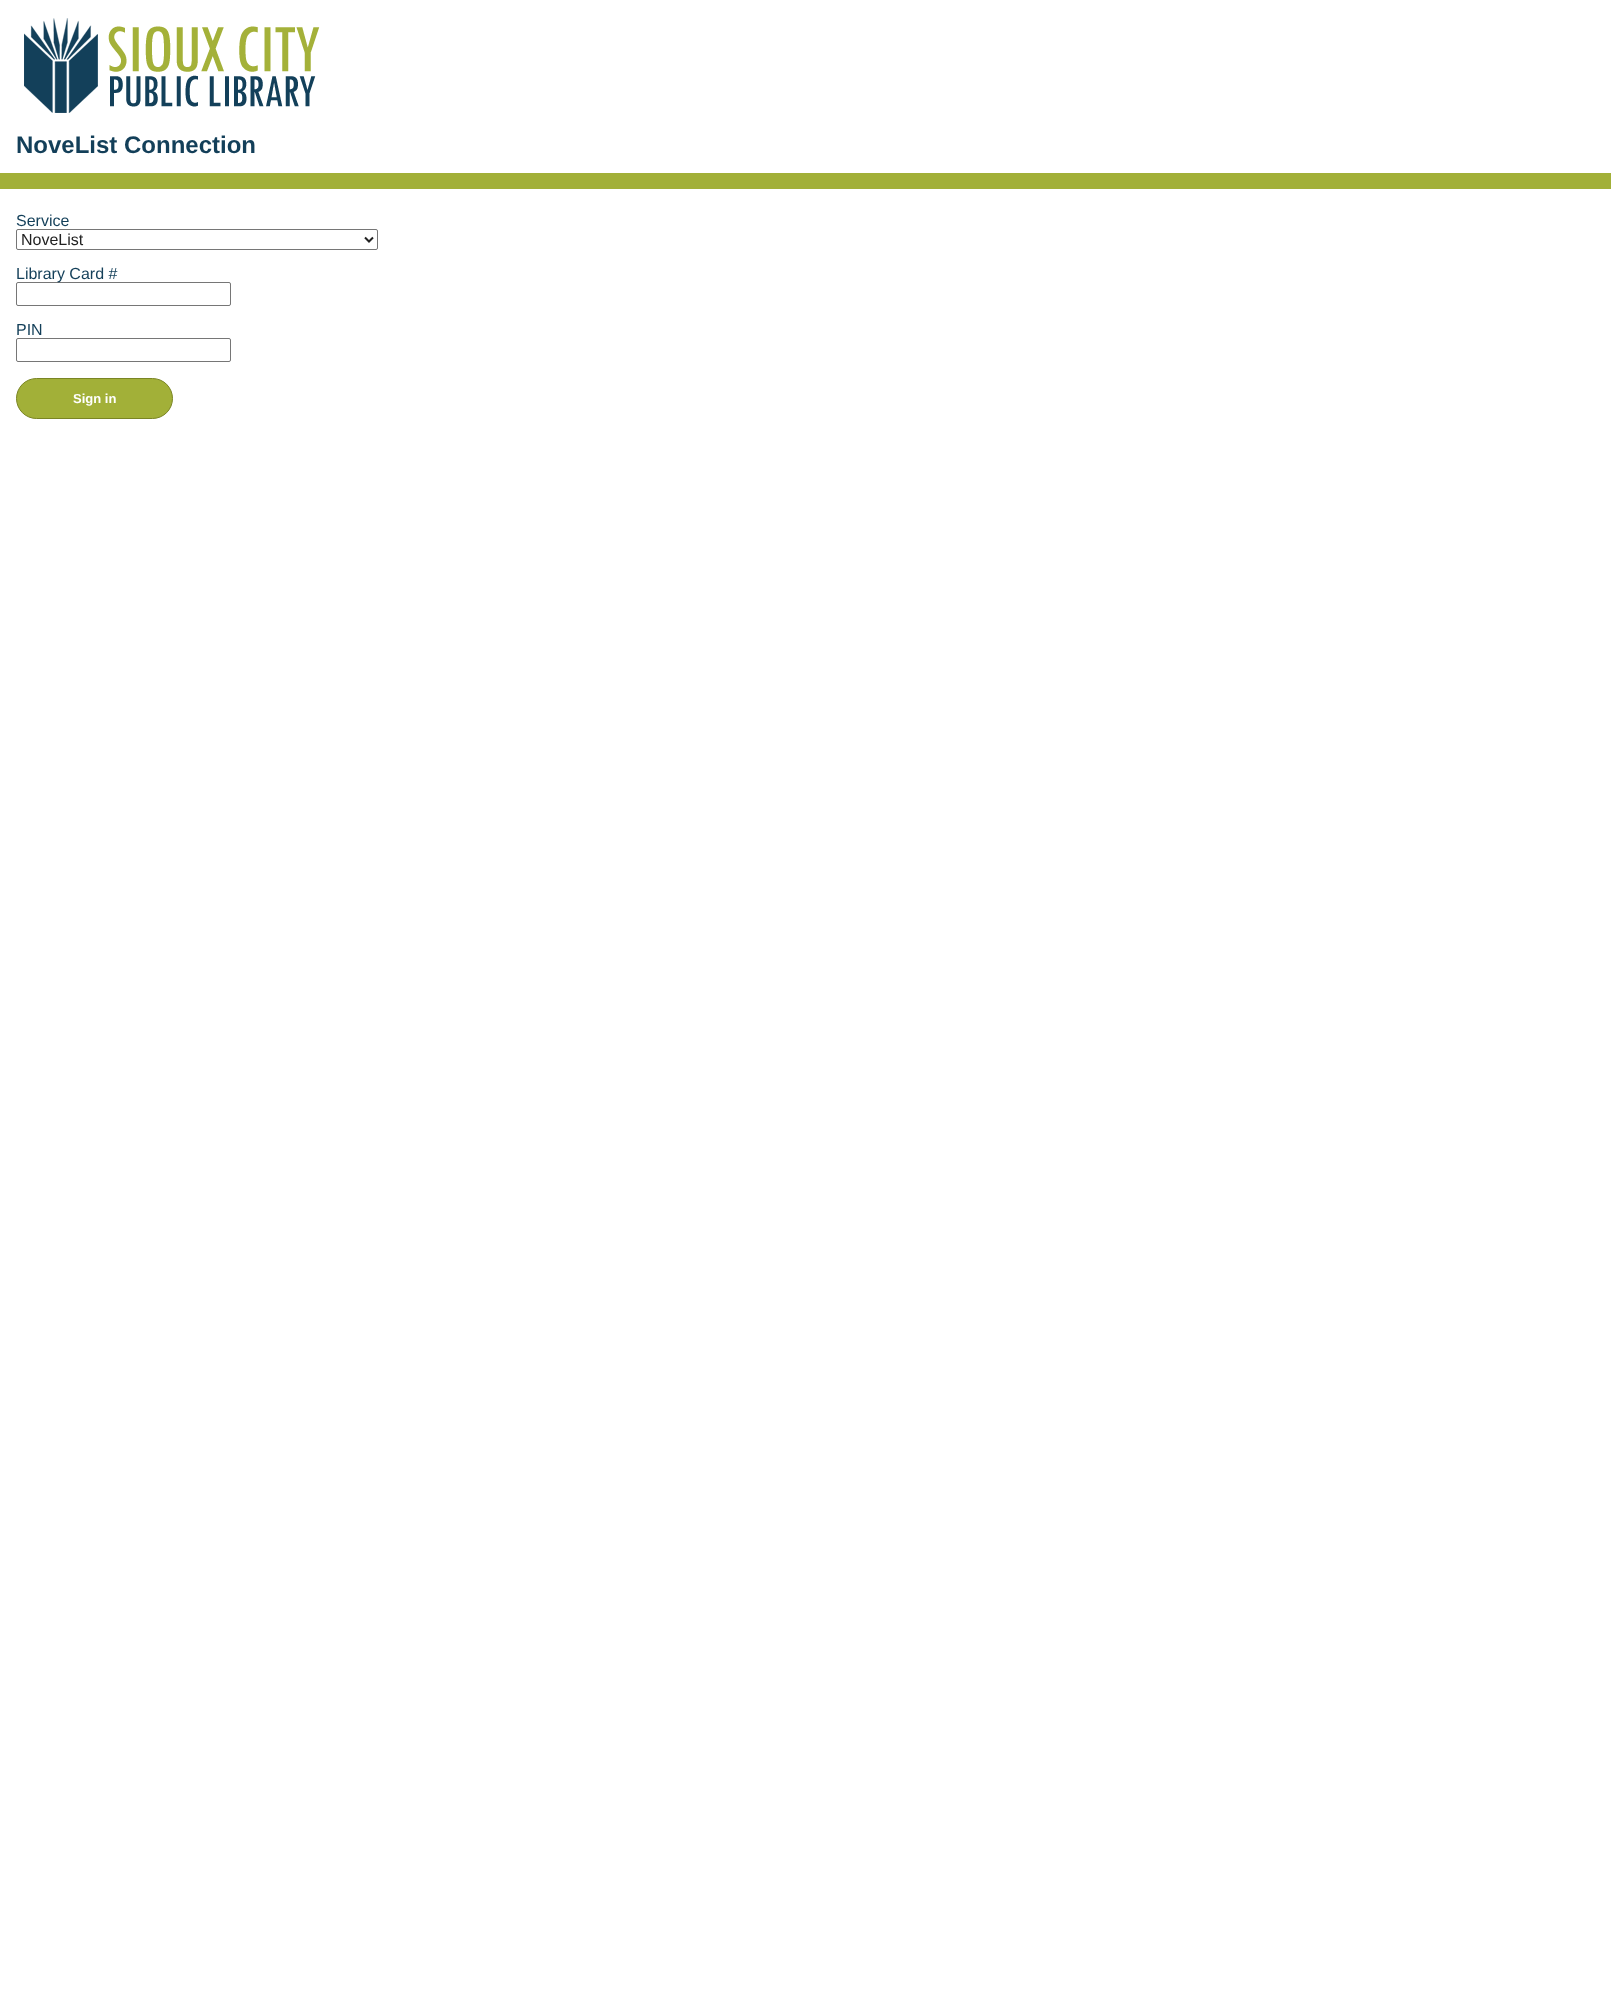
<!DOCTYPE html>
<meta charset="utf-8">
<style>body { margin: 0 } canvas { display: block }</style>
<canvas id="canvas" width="1611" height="2007"></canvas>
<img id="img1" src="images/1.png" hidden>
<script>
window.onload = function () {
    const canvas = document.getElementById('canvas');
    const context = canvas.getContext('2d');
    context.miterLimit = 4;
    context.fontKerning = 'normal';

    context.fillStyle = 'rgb(255, 255, 255)';
    context.fillRect(0, 0, 1611, 2007);
    context.fillStyle = 'rgb(162, 176, 56)';
    context.fillRect(0, 173, 1611, 16);
    context.drawImage(document.getElementById('img1'), 24, 18, 296, 95);
    context.beginPath();
    context.roundRect(16.5, 229.5, 361, 20, 1.5);
    context.strokeStyle = 'rgb(118, 118, 118)';
    context.stroke();
    context.beginPath();
    context.moveTo(365, 237.5);
    context.lineTo(369, 241.5);
    context.lineTo(373, 237.5);
    context.strokeStyle = 'rgb(34, 34, 34)';
    context.lineWidth = 2;
    context.stroke();
    context.beginPath();
    context.roundRect(16.5, 282.5, 214, 23, 1.5);
    context.strokeStyle = 'rgb(118, 118, 118)';
    context.lineWidth = 1;
    context.stroke();
    context.beginPath();
    context.roundRect(16.5, 338.5, 214, 23, 1.5);
    context.stroke();
    context.beginPath();
    context.roundRect(16.5, 378.5, 156, 40, 20);
    context.fill();
    context.strokeStyle = 'rgb(122, 133, 36)';
    context.stroke();
    context.font = 'bold 24px Liberation Sans';
    context.fillStyle = 'rgb(19, 63, 89)';
    context.fillText('NoveList Connection', 16, 153);
    context.font = '16px Liberation Sans';
    context.fillText('Service', 16, 226);
    context.fillStyle = 'rgb(34, 34, 34)';
    context.fillText('NoveList', 21, 245);
    context.fillStyle = 'rgb(19, 63, 89)';
    context.fillText('Library Card #', 16, 279);
    context.fillText('PIN', 16, 335);
    context.font = 'bold 13px Liberation Sans';
    context.fillStyle = 'rgb(255, 255, 255)';
    context.fillText('Sign in', 73, 403);
};
</script>
